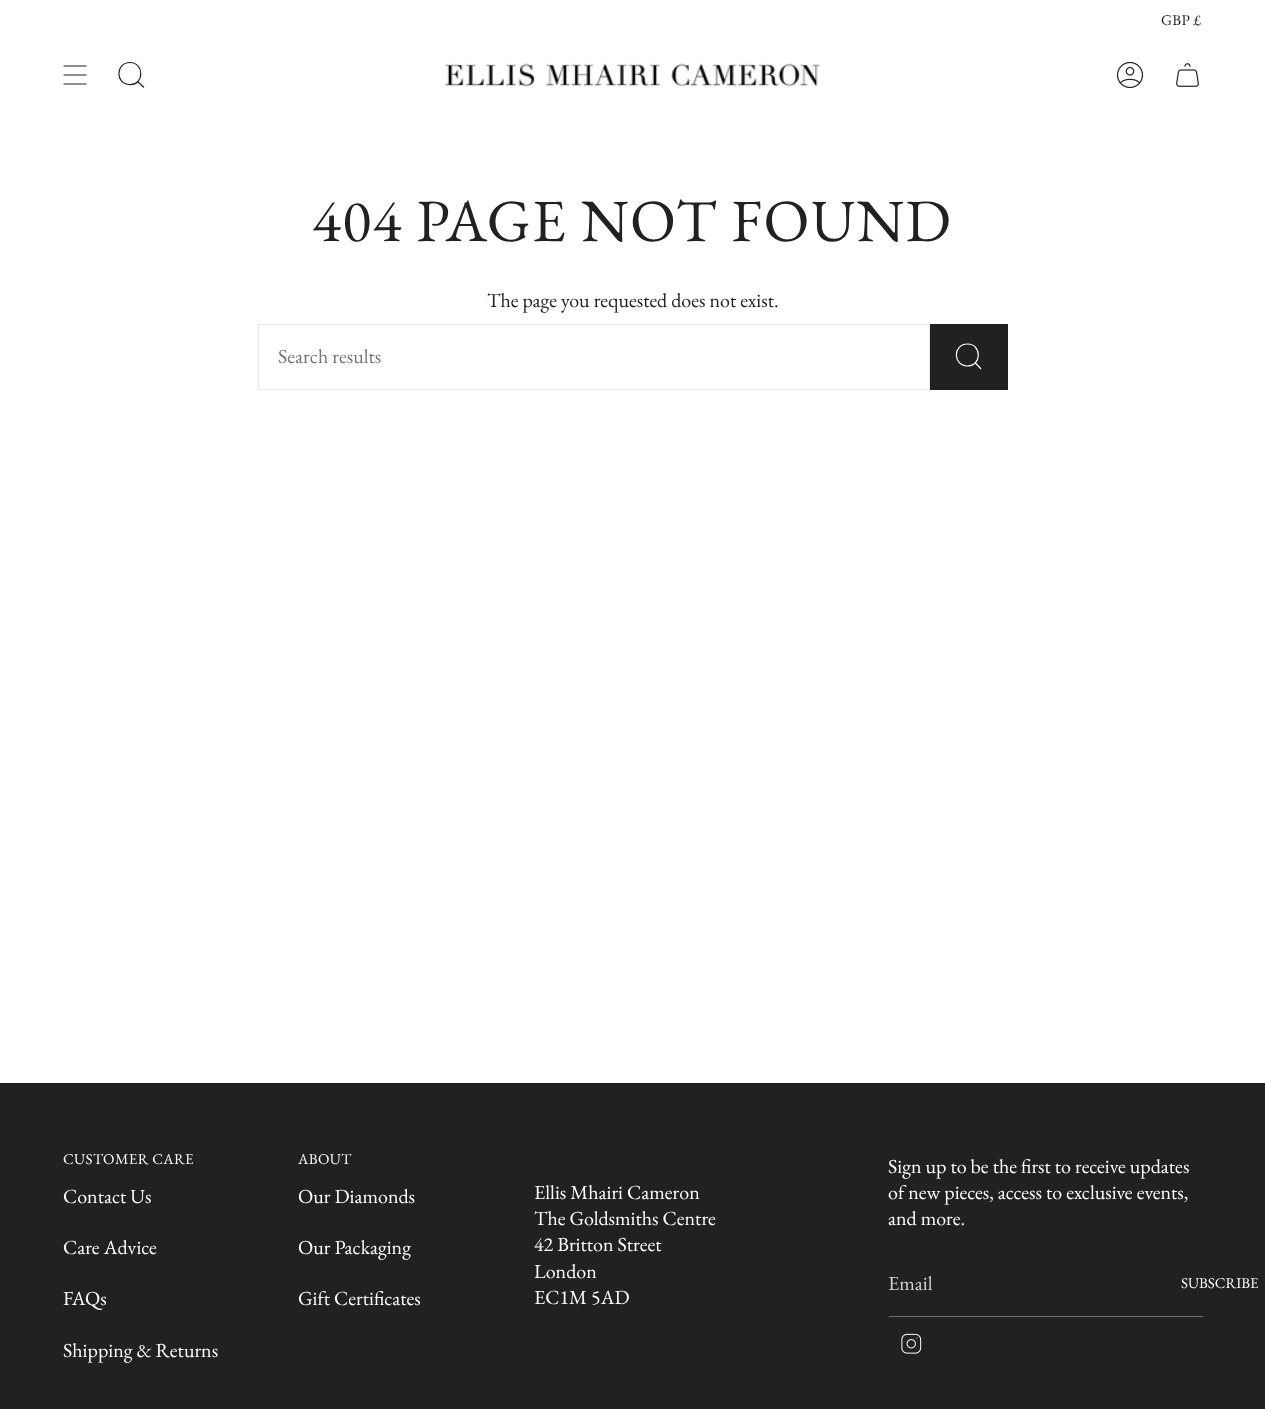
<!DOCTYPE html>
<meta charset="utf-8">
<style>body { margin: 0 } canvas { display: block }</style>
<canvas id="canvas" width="1265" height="1409"></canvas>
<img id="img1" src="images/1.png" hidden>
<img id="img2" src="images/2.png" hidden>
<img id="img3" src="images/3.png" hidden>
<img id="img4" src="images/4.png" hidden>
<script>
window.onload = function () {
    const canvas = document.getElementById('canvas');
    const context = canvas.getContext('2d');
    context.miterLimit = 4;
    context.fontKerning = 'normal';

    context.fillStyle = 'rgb(255, 255, 255)';
    context.fillRect(0, 0, 1265, 1409);
    context.beginPath();
    context.moveTo(64, 66);
    context.lineTo(86, 66);
    context.moveTo(64, 75);
    context.lineTo(86, 75);
    context.moveTo(64, 84);
    context.lineTo(86, 84);
    context.strokeStyle = 'rgb(33, 33, 33)';
    context.lineWidth = 1.2;
    context.lineCap = 'round';
    context.lineJoin = 'round';
    context.stroke();
    context.beginPath();
    context.moveTo(130, 62.5);
    context.bezierCurveTo(144.5, 62.5, 144.5, 85.5, 129.5, 84.5);
    context.bezierCurveTo(115, 84, 115.5, 62.5, 130, 62.5);
    context.closePath();
    context.moveTo(137.5, 81.5);
    context.lineTo(144, 87.5);
    context.lineCap = 'butt';
    context.lineJoin = 'miter';
    context.stroke();
    context.drawImage(document.getElementById('img1'), 445, 63, 375, 24);
    context.drawImage(document.getElementById('img2'), 1116, 61, 28, 28);
    context.drawImage(document.getElementById('img3'), 1176, 63, 23, 24);
    context.strokeStyle = 'rgb(232, 232, 232)';
    context.lineWidth = 1;
    context.strokeRect(258.5, 324.5, 671, 65);
    context.fillStyle = 'rgb(33, 33, 33)';
    context.fillRect(930, 324, 78, 66);
    context.beginPath();
    context.moveTo(967.5, 344);
    context.bezierCurveTo(982, 344, 982, 366.5, 967, 366);
    context.bezierCurveTo(952.5, 365, 953, 344, 967.5, 344);
    context.closePath();
    context.moveTo(975, 362.5);
    context.lineTo(981, 369);
    context.strokeStyle = 'rgb(255, 255, 255)';
    context.lineWidth = 1.2;
    context.stroke();
    context.fillRect(0, 1083, 1265, 326);
    context.fillStyle = 'rgb(111, 111, 111)';
    context.fillRect(889, 1316, 314, 1);
    context.drawImage(document.getElementById('img4'), 901, 1333, 21, 21);
    context.letterSpacing = '0.4px';
    context.font = '15px EB Garamond';
    context.fillStyle = 'rgb(33, 33, 33)';
    context.fillText('GBP £', 1161, 25);
    context.letterSpacing = '1.5px';
    context.font = '60px EB Garamond';
    context.fillText('404 PAGE NOT FOUND', 312, 241);
    context.letterSpacing = '0px';
    context.font = '20px EB Garamond';
    context.fillText('The page you requested does not exist.', 487, 307);
    context.fillStyle = 'rgb(117, 117, 117)';
    context.fillText('Search results', 278, 363);
    context.letterSpacing = '0.4px';
    context.font = '15px EB Garamond';
    context.fillStyle = 'rgb(255, 255, 255)';
    context.fillText('CUSTOMER CARE', 63, 1164);
    context.letterSpacing = '0px';
    context.font = '20px EB Garamond';
    context.fillText('Contact Us', 63, 1203);
    context.fillText('Care Advice', 63, 1254);
    context.fillText('FAQs', 63, 1305);
    context.fillText('Shipping & Returns', 63, 1357);
    context.letterSpacing = '0.4px';
    context.font = '15px EB Garamond';
    context.fillText('ABOUT', 298, 1164);
    context.letterSpacing = '0px';
    context.font = '20px EB Garamond';
    context.fillText('Our Diamonds', 298, 1203);
    context.fillText('Our Packaging', 298, 1254);
    context.fillText('Gift Certificates', 298, 1305);
    context.fillText('Ellis Mhairi Cameron', 534, 1199);
    context.fillText('The Goldsmiths Centre', 534, 1225);
    context.fillText('42 Britton Street', 534, 1251);
    context.fillText('London', 534, 1278);
    context.fillText('EC1M 5AD', 534, 1304);
    context.fillText('Sign up to be the first to receive updates', 888, 1173);
    context.fillText('of new pieces, access to exclusive events,', 888, 1199);
    context.fillText('and more.', 888, 1225);
    context.fillStyle = 'rgb(211, 211, 211)';
    context.fillText('Email', 888, 1290);
    context.font = '15px EB Garamond';
    context.fillStyle = 'rgb(255, 255, 255)';
    context.fillText('SUBSCRIBE', 1181, 1288);
};
</script>
